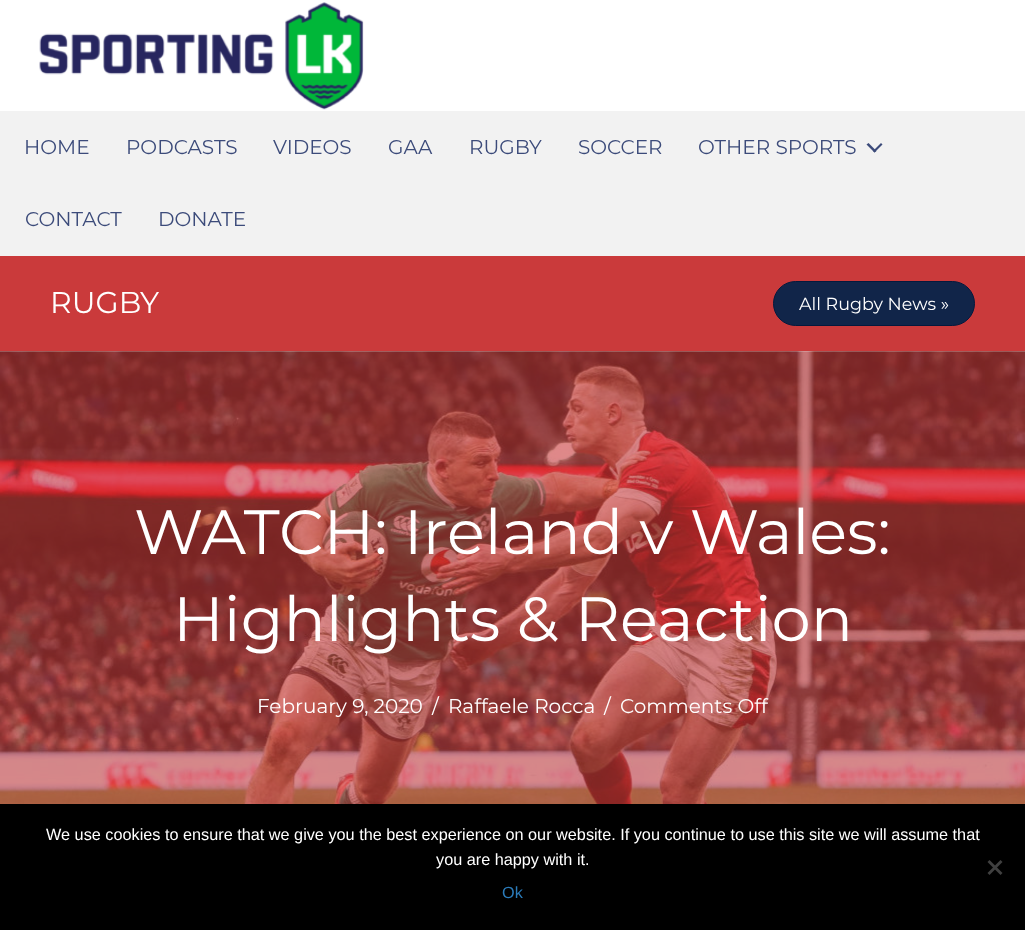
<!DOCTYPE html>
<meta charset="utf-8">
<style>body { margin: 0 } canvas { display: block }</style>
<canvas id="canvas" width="1025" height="930"></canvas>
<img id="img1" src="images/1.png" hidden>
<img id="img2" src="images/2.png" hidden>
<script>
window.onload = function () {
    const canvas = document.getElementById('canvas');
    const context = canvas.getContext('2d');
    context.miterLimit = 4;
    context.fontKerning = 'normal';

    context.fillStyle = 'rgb(242, 242, 242)';
    context.fillRect(0, 0, 1025, 930);
    context.fillStyle = 'rgb(255, 255, 255)';
    context.fillRect(0, 0, 1025, 111);
    context.drawImage(document.getElementById('img1'), 39, 2, 325, 108);
    context.fillStyle = 'rgb(60, 75, 122)';
    context.beginPath();
    context.moveTo(881, 143);
    context.lineTo(882.5, 144.5);
    context.lineTo(874.5, 152.5);
    context.lineTo(873, 151);
    context.closePath();
    context.fill();
    context.beginPath();
    context.moveTo(868.5, 143);
    context.lineTo(876.5, 151);
    context.lineTo(874.5, 152.5);
    context.lineTo(866.5, 144.5);
    context.closePath();
    context.fill();
    context.fillStyle = 'rgb(202, 58, 59)';
    context.fillRect(0, 256, 1025, 95);
    context.fillStyle = 'rgb(17, 37, 73)';
    context.beginPath();
    context.roundRect(773.5, 281.5, 201, 44, 22);
    context.fill();
    context.strokeStyle = 'rgb(5, 25, 61)';
    context.stroke();
    context.drawImage(document.getElementById('img2'), 0, 351, 1025, 453);
    context.fillStyle = 'rgb(0, 0, 0)';
    context.fillRect(0, 804, 1025, 126);
    context.fillStyle = 'rgb(64, 64, 64)';
    context.beginPath();
    context.moveTo(1000.5, 860);
    context.lineTo(1002.5, 862);
    context.lineTo(989.5, 875);
    context.lineTo(987.5, 873);
    context.closePath();
    context.fill();
    context.beginPath();
    context.moveTo(987.5, 862);
    context.lineTo(989.5, 860);
    context.lineTo(1002.5, 873);
    context.lineTo(1000.5, 875);
    context.closePath();
    context.fill();
    context.font = '20px Montserrat';
    context.fillStyle = 'rgb(60, 75, 122)';
    context.fillText('HOME', 24, 154);
    context.fillText('PODCASTS', 126, 154);
    context.fillText('VIDEOS', 273, 154);
    context.fillText('GAA', 388, 154);
    context.fillText('RUGBY', 469, 154);
    context.fillText('SOCCER', 578, 154);
    context.fillText('OTHER SPORTS', 698, 154);
    context.fillText('CONTACT', 25, 226);
    context.fillText('DONATE', 158, 226);
    context.font = '30px Montserrat';
    context.fillStyle = 'rgb(255, 255, 255)';
    context.fillText('RUGBY', 50, 313);
    context.font = '17.5px Montserrat';
    context.fillText('All Rugby News »', 799, 310);
    context.font = '62.5px Montserrat';
    context.fillText('WATCH: Ireland v Wales:', 134, 554);
    context.fillText('Highlights & Reaction', 173, 641);
    context.font = '20px Montserrat';
    context.fillText('February 9, 2020', 257, 713);
    context.fillText('/', 432, 713);
    context.fillText('Raffaele Rocca', 448, 713);
    context.fillText('/', 604, 713);
    context.fillText('Comments Off', 620, 713);
    context.font = '16.25px Liberation Sans';
    context.fillText('We use cookies to ensure that we give you the best experience on our website. If you continue to use this site we will assume that', 46, 840);
    context.fillText('you are happy with it.', 436, 865);
    context.fillStyle = 'rgb(43, 123, 185)';
    context.fillText('Ok', 502, 898);
};
</script>
